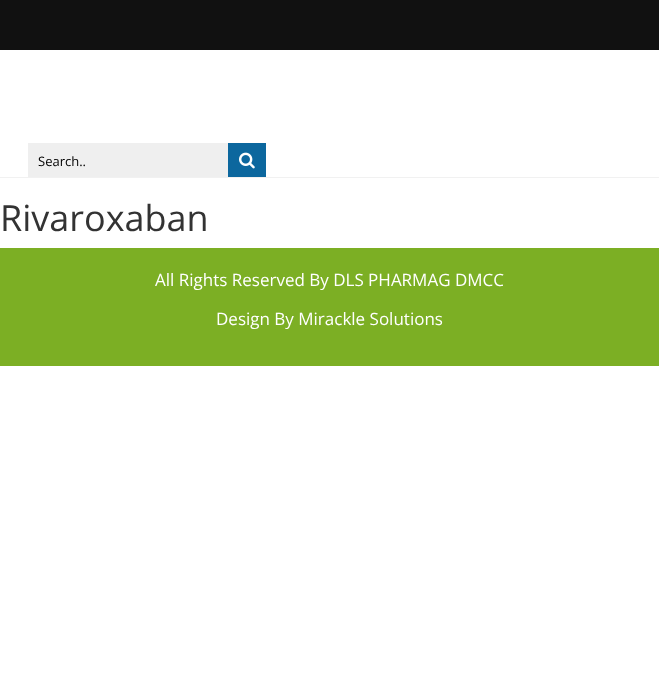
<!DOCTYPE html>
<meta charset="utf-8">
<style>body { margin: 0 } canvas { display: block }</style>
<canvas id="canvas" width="659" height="687"></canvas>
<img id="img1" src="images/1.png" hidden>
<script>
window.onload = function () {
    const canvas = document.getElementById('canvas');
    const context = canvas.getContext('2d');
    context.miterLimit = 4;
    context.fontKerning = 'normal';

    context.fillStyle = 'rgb(255, 255, 255)';
    context.fillRect(0, 0, 659, 687);
    context.fillStyle = 'rgb(17, 17, 17)';
    context.fillRect(0, 0, 659, 50);
    context.fillStyle = 'rgb(241, 241, 241)';
    context.fillRect(0, 177, 659, 1);
    context.fillStyle = 'rgb(239, 239, 239)';
    context.fillRect(28, 143, 200, 34);
    context.fillStyle = 'rgb(12, 103, 158)';
    context.fillRect(228, 143, 38, 34);
    context.drawImage(document.getElementById('img1'), 239, 152, 16, 17);
    context.fillStyle = 'rgb(124, 175, 36)';
    context.fillRect(0, 248, 659, 118);
    context.font = '13px Open Sans';
    context.fillStyle = 'rgb(0, 0, 0)';
    context.fillText('Search..', 38, 166);
    context.font = '36px Open Sans';
    context.fillStyle = 'rgb(51, 51, 51)';
    context.fillText('Rivaroxaban', 0, 231);
    context.font = '17px Open Sans';
    context.fillStyle = 'rgb(255, 255, 255)';
    context.fillText('All Rights Reserved By DLS PHARMAG DMCC', 155, 286);
    context.fillText('Design By Mirackle Solutions', 216, 325);
};
</script>
